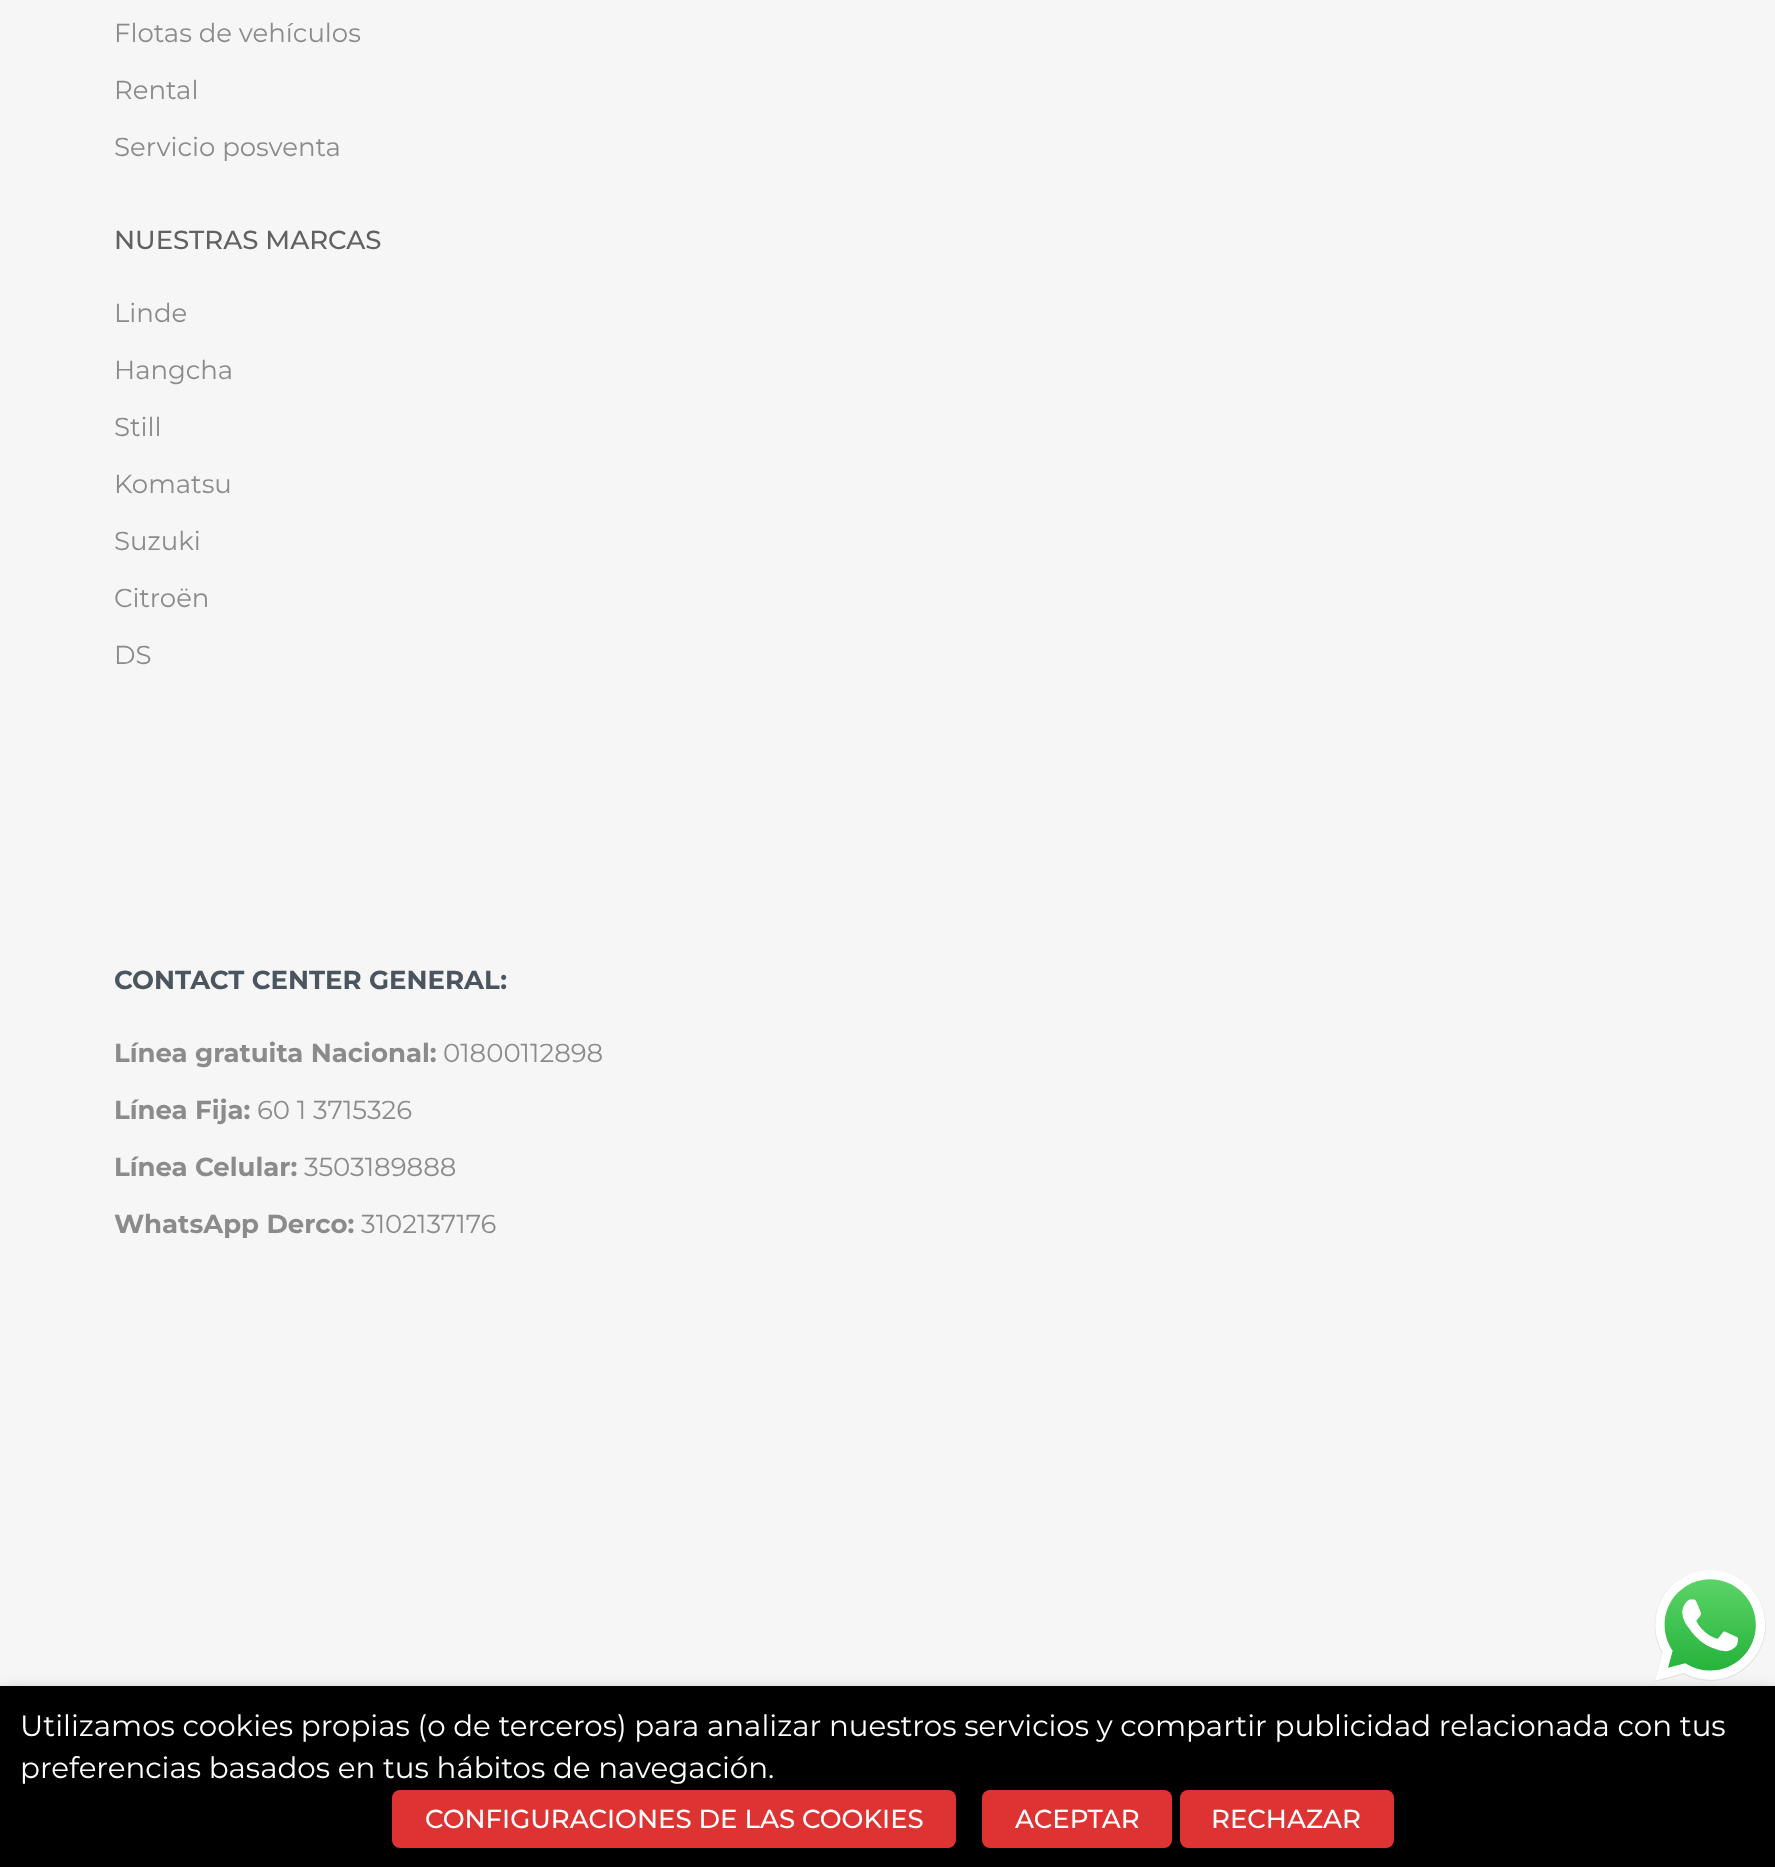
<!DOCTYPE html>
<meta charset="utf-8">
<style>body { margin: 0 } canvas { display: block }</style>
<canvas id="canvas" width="1775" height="1867"></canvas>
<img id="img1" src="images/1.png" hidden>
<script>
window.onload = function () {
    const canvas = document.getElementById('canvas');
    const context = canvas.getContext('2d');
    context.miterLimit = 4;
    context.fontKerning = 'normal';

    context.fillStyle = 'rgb(246, 246, 246)';
    context.fillRect(0, 0, 1775, 1867);
    context.fillStyle = 'rgba(0, 0, 0, 0.5)';
    context.filter = 'blur(10px)';
    context.beginPath();
    context.rect(0, 1696, 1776, 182);
    context.fill();
    context.filter = 'none';
    context.drawImage(document.getElementById('img1'), 1654, 1570, 112, 112);
    context.fillStyle = 'rgb(0, 0, 0)';
    context.fillRect(0, 1686, 1775, 181);
    context.fillStyle = 'rgb(221, 51, 51)';
    context.beginPath();
    context.roundRect(392, 1790, 564, 58, 8);
    context.fill();
    context.beginPath();
    context.roundRect(982, 1790, 190, 58, 8);
    context.fill();
    context.beginPath();
    context.roundRect(1180, 1790, 214, 58, 8);
    context.fill();
    context.font = '26px Montserrat';
    context.fillStyle = 'rgb(139, 139, 139)';
    context.fillText('Flotas de vehículos', 114, 42);
    context.fillText('Rental', 114, 99);
    context.fillText('Servicio posventa', 114, 156);
    context.font = '500 26px Montserrat';
    context.fillStyle = 'rgb(97, 97, 97)';
    context.fillText('NUESTRAS MARCAS', 114, 249);
    context.font = '26px Montserrat';
    context.fillStyle = 'rgb(139, 139, 139)';
    context.fillText('Linde', 114, 322);
    context.fillText('Hangcha', 114, 379);
    context.fillText('Still', 114, 436);
    context.fillText('Komatsu', 114, 493);
    context.fillText('Suzuki', 114, 550);
    context.fillText('Citroën', 114, 607);
    context.fillText('DS', 114, 664);
    context.font = 'bold 26px Montserrat';
    context.fillStyle = 'rgb(75, 85, 96)';
    context.fillText('CONTACT CENTER GENERAL:', 114, 989);
    context.fillStyle = 'rgb(139, 139, 139)';
    context.fillText('Línea gratuita Nacional:', 114, 1062);
    context.font = '26px Montserrat';
    context.fillText('01800112898', 443, 1062);
    context.font = 'bold 26px Montserrat';
    context.fillText('Línea Fija:', 114, 1119);
    context.font = '26px Montserrat';
    context.fillText('60 1 3715326', 257, 1119);
    context.font = 'bold 26px Montserrat';
    context.fillText('Línea Celular:', 114, 1176);
    context.font = '26px Montserrat';
    context.fillText('3503189888', 304, 1176);
    context.font = 'bold 26px Montserrat';
    context.fillText('WhatsApp Derco:', 114, 1233);
    context.font = '26px Montserrat';
    context.fillText('3102137176', 361, 1233);
    context.font = '29.33px Montserrat';
    context.fillStyle = 'rgb(255, 255, 255)';
    context.fillText('Utilizamos cookies propias (o de terceros) para analizar nuestros servicios y compartir publicidad relacionada con tus', 20, 1736);
    context.fillText('preferencias basados en tus hábitos de navegación.', 20, 1778);
    context.font = '500 26px Montserrat';
    context.fillText('CONFIGURACIONES DE LAS COOKIES', 425, 1828);
    context.fillText('ACEPTAR', 1015, 1828);
    context.fillText('RECHAZAR', 1211, 1828);
};
</script>
